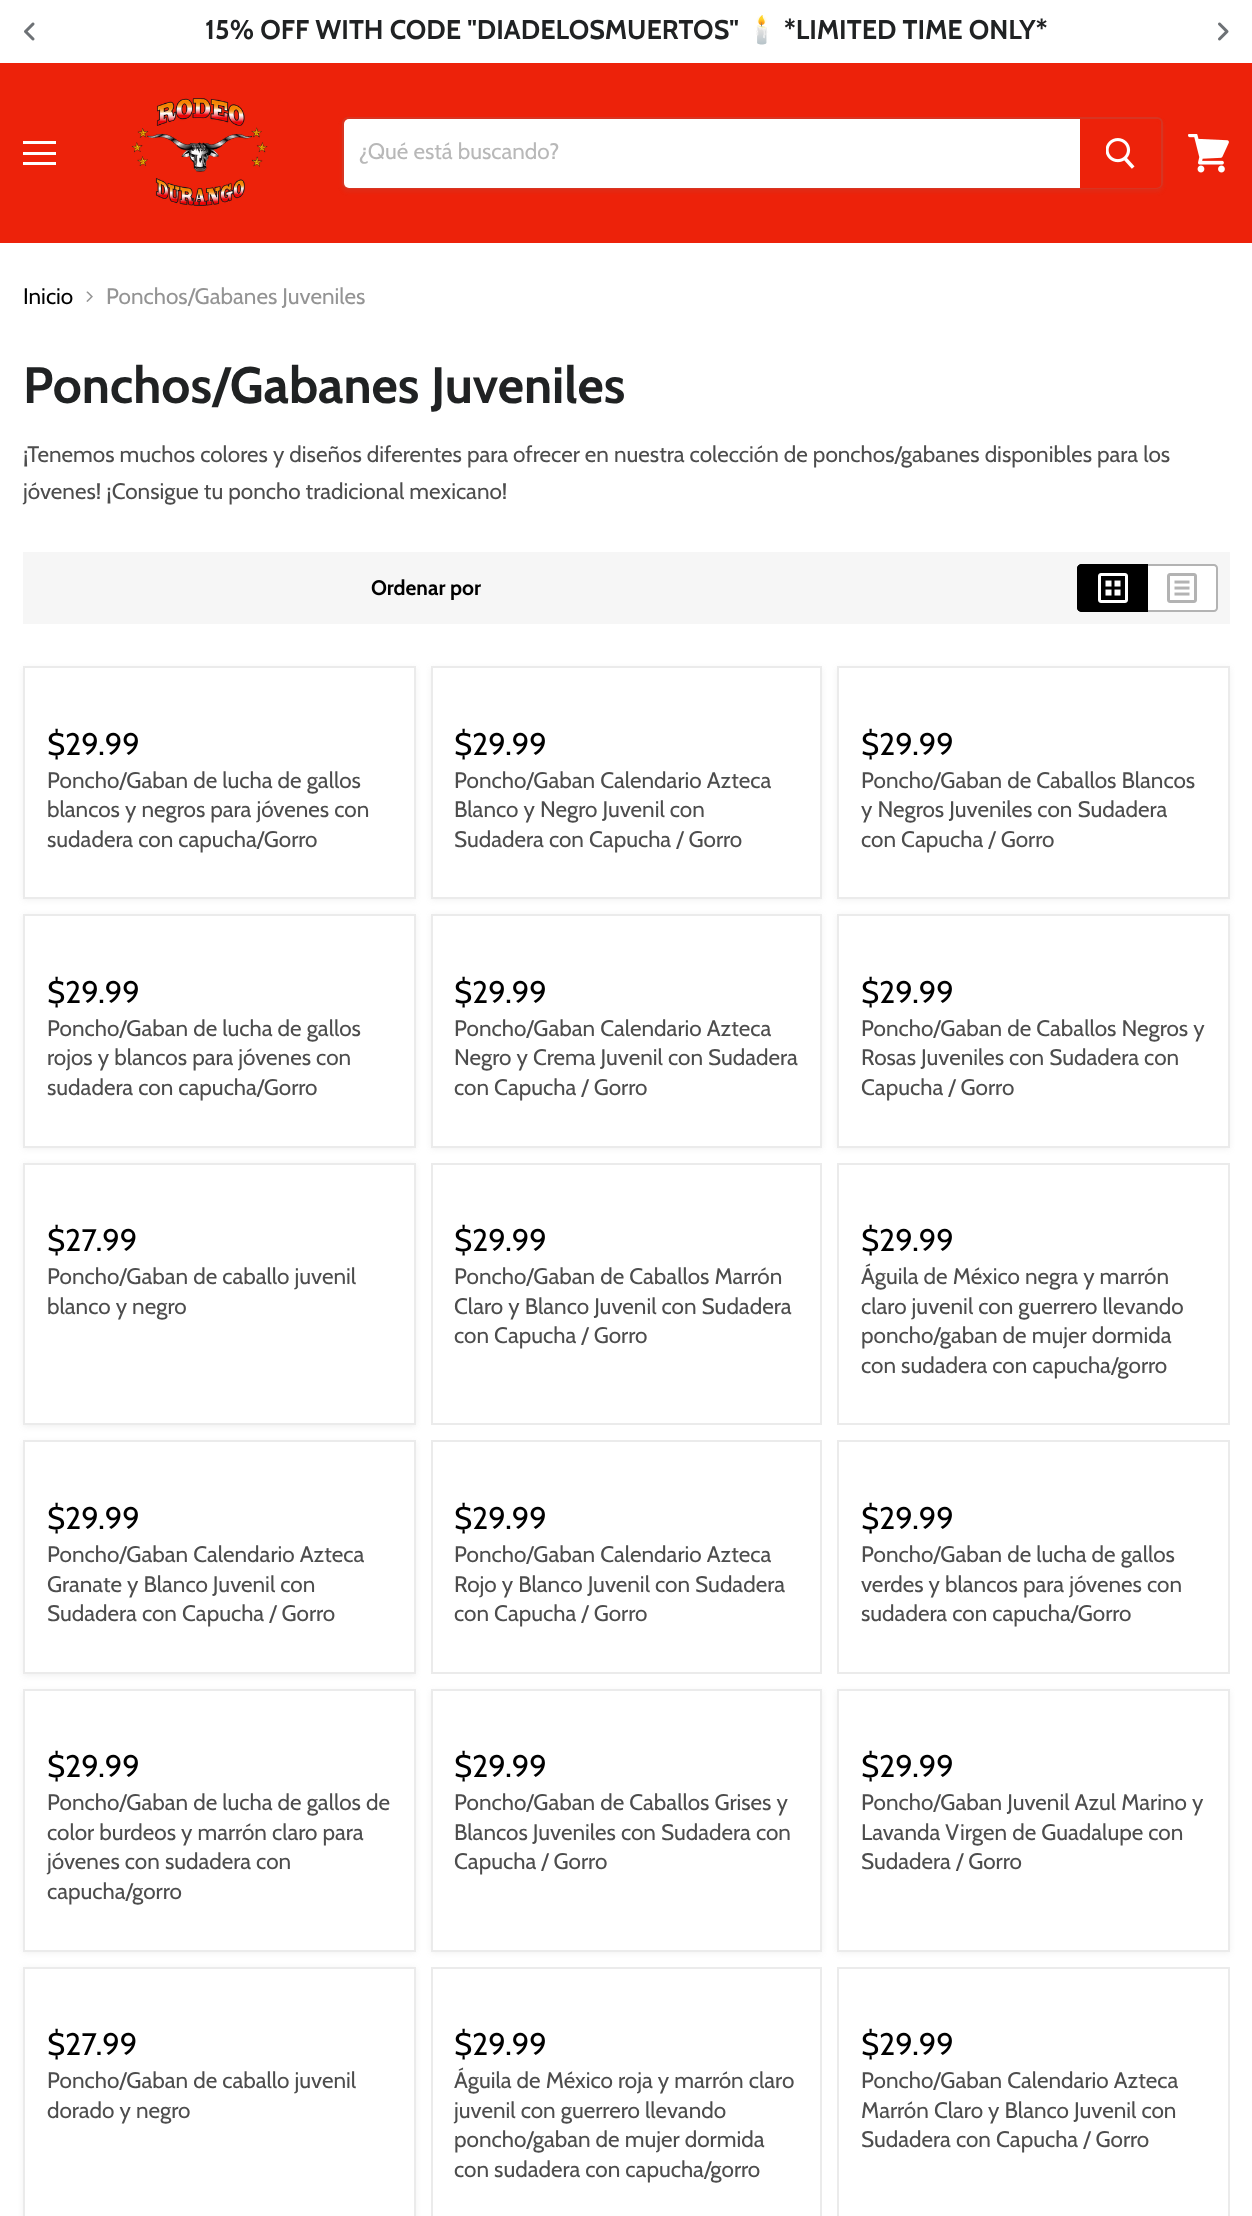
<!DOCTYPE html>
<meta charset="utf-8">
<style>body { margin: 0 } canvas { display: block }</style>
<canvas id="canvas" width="1252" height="2216"></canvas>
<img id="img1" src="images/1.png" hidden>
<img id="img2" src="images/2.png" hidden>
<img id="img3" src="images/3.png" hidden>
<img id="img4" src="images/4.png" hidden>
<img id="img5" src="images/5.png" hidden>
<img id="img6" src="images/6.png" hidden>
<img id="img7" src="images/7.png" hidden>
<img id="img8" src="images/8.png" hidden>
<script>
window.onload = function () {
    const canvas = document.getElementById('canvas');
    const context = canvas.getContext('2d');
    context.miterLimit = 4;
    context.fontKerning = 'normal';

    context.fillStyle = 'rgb(255, 255, 255)';
    context.fillRect(0, 0, 1252, 2216);
    context.drawImage(document.getElementById('img1'), 24, 22, 11, 19);
    context.drawImage(document.getElementById('img2'), 1218, 22, 11, 19);
    context.fillStyle = 'rgb(237, 34, 10)';
    context.fillRect(0, 63, 1252, 180);
    context.fillStyle = 'rgb(255, 255, 255)';
    context.fillRect(23, 141, 33, 3);
    context.fillRect(23, 152, 33, 3);
    context.fillRect(23, 162, 33, 3);
    context.drawImage(document.getElementById('img3'), 131, 98, 137, 108);
    context.save();
    context.beginPath();
    context.moveTo(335, 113);
    context.lineTo(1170, 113);
    context.lineTo(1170, 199);
    context.lineTo(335, 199);
    context.closePath();
    context.moveTo(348, 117);
    context.lineTo(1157, 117);
    context.bezierCurveTo(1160.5, 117, 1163, 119.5, 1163, 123);
    context.lineTo(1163, 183);
    context.bezierCurveTo(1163, 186.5, 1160.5, 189, 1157, 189);
    context.lineTo(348, 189);
    context.bezierCurveTo(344.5, 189, 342, 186.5, 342, 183);
    context.lineTo(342, 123);
    context.bezierCurveTo(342, 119.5, 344.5, 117, 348, 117);
    context.closePath();
    context.clip('evenodd');
    context.fillStyle = 'rgba(128, 128, 128, 0.11)';
    context.filter = 'blur(2px)';
    context.beginPath();
    context.roundRect(342, 120, 821, 72, 6);
    context.fill();
    context.filter = 'none';
    context.restore();
    context.beginPath();
    context.roundRect(343, 118, 819, 70, 5);
    context.strokeStyle = 'rgba(128, 128, 128, 0.2)';
    context.lineWidth = 2;
    context.stroke();
    context.beginPath();
    context.roundRect(344, 119, 736, 69, [5, 0, 0, 5]);
    context.fill();
    context.fillStyle = 'rgb(237, 34, 10)';
    context.beginPath();
    context.roundRect(1081, 120, 79, 67, [0, 4, 4, 0]);
    context.fill();
    context.strokeStyle = 'rgb(237, 34, 10)';
    context.stroke();
    context.drawImage(document.getElementById('img4'), 1106, 138, 29, 31);
    context.drawImage(document.getElementById('img5'), 1188, 134, 41, 39);
    context.drawImage(document.getElementById('img6'), 86, 291, 7, 11);
    context.fillStyle = 'rgb(246, 246, 246)';
    context.fillRect(23, 552, 1207, 72);
    context.fillStyle = 'rgb(0, 0, 0)';
    context.beginPath();
    context.roundRect(1077, 564, 71, 48, [5, 0, 0, 5]);
    context.fill();
    context.beginPath();
    context.moveTo(1082, 564);
    context.lineTo(1148, 564);
    context.lineTo(1148, 612);
    context.lineTo(1082, 612);
    context.bezierCurveTo(1079, 612, 1077, 610, 1077, 608);
    context.lineTo(1077, 568);
    context.bezierCurveTo(1077, 566, 1079, 564, 1082, 564);
    context.closePath();
    context.moveTo(1082, 566);
    context.lineTo(1148, 566);
    context.lineTo(1148, 610);
    context.lineTo(1082, 610);
    context.bezierCurveTo(1080, 610, 1078, 609, 1078, 608);
    context.lineTo(1078, 568);
    context.bezierCurveTo(1078, 567, 1080, 566, 1082, 566);
    context.closePath();
    context.fill('evenodd');
    context.drawImage(document.getElementById('img7'), 1098, 573, 30, 30);
    context.fillStyle = 'rgb(255, 255, 255)';
    context.beginPath();
    context.roundRect(1148, 564, 70, 48, [0, 5, 5, 0]);
    context.fill();
    context.fillStyle = 'rgb(179, 179, 179)';
    context.beginPath();
    context.moveTo(1148, 564);
    context.lineTo(1214, 564);
    context.bezierCurveTo(1216, 564, 1218, 566, 1218, 568);
    context.lineTo(1218, 608);
    context.bezierCurveTo(1218, 610, 1216, 612, 1214, 612);
    context.lineTo(1148, 612);
    context.closePath();
    context.moveTo(1148, 566);
    context.lineTo(1214, 566);
    context.bezierCurveTo(1215, 566, 1216, 567, 1216, 568);
    context.lineTo(1216, 608);
    context.bezierCurveTo(1216, 609, 1215, 610, 1214, 610);
    context.lineTo(1148, 610);
    context.closePath();
    context.fill('evenodd');
    context.drawImage(document.getElementById('img8'), 1167, 573, 30, 30);
    context.fillStyle = 'rgba(128, 128, 128, 0.11)';
    context.filter = 'blur(3px)';
    context.beginPath();
    context.rect(23, 668, 393, 232);
    context.fill();
    context.filter = 'none';
    context.fillStyle = 'rgb(255, 255, 255)';
    context.beginPath();
    context.rect(24, 667, 391, 231);
    context.fill();
    context.strokeStyle = 'rgb(235, 235, 235)';
    context.stroke();
    context.fillStyle = 'rgba(128, 128, 128, 0.11)';
    context.filter = 'blur(3px)';
    context.beginPath();
    context.rect(431, 668, 391, 232);
    context.fill();
    context.filter = 'none';
    context.fillStyle = 'rgb(255, 255, 255)';
    context.beginPath();
    context.rect(432, 667, 389, 231);
    context.fill();
    context.stroke();
    context.fillStyle = 'rgba(128, 128, 128, 0.11)';
    context.filter = 'blur(3px)';
    context.beginPath();
    context.rect(837, 668, 393, 232);
    context.fill();
    context.filter = 'none';
    context.fillStyle = 'rgb(255, 255, 255)';
    context.beginPath();
    context.rect(838, 667, 391, 231);
    context.fill();
    context.stroke();
    context.fillStyle = 'rgba(128, 128, 128, 0.11)';
    context.filter = 'blur(3px)';
    context.beginPath();
    context.rect(23, 915, 393, 234);
    context.fill();
    context.filter = 'none';
    context.fillStyle = 'rgb(255, 255, 255)';
    context.beginPath();
    context.rect(24, 915, 391, 232);
    context.fill();
    context.stroke();
    context.fillStyle = 'rgba(128, 128, 128, 0.11)';
    context.filter = 'blur(3px)';
    context.beginPath();
    context.rect(431, 915, 391, 234);
    context.fill();
    context.filter = 'none';
    context.fillStyle = 'rgb(255, 255, 255)';
    context.beginPath();
    context.rect(432, 915, 389, 232);
    context.fill();
    context.stroke();
    context.fillStyle = 'rgba(128, 128, 128, 0.11)';
    context.filter = 'blur(3px)';
    context.beginPath();
    context.rect(837, 915, 393, 234);
    context.fill();
    context.filter = 'none';
    context.fillStyle = 'rgb(255, 255, 255)';
    context.beginPath();
    context.rect(838, 915, 391, 232);
    context.fill();
    context.stroke();
    context.fillStyle = 'rgba(128, 128, 128, 0.11)';
    context.filter = 'blur(3px)';
    context.beginPath();
    context.rect(23, 1164, 393, 263);
    context.fill();
    context.filter = 'none';
    context.fillStyle = 'rgb(255, 255, 255)';
    context.beginPath();
    context.rect(24, 1164, 391, 260);
    context.fill();
    context.stroke();
    context.strokeRect(432, 1164, 389, 260);
    context.strokeRect(838, 1164, 391, 260);
    context.fillStyle = 'rgba(128, 128, 128, 0.11)';
    context.filter = 'blur(3px)';
    context.beginPath();
    context.rect(23, 1442, 393, 234);
    context.fill();
    context.filter = 'none';
    context.fillStyle = 'rgb(255, 255, 255)';
    context.beginPath();
    context.rect(24, 1441, 391, 232);
    context.fill();
    context.stroke();
    context.strokeRect(432, 1441, 389, 232);
    context.strokeRect(838, 1441, 391, 232);
    context.fillStyle = 'rgba(128, 128, 128, 0.11)';
    context.filter = 'blur(3px)';
    context.beginPath();
    context.rect(23, 1691, 393, 262);
    context.fill();
    context.filter = 'none';
    context.fillStyle = 'rgb(255, 255, 255)';
    context.beginPath();
    context.rect(24, 1690, 391, 261);
    context.fill();
    context.stroke();
    context.fillStyle = 'rgba(128, 128, 128, 0.11)';
    context.filter = 'blur(3px)';
    context.beginPath();
    context.rect(431, 1691, 391, 262);
    context.fill();
    context.filter = 'none';
    context.fillStyle = 'rgb(255, 255, 255)';
    context.beginPath();
    context.rect(432, 1690, 389, 261);
    context.fill();
    context.stroke();
    context.fillStyle = 'rgba(128, 128, 128, 0.11)';
    context.filter = 'blur(3px)';
    context.beginPath();
    context.rect(837, 1691, 393, 262);
    context.fill();
    context.filter = 'none';
    context.fillStyle = 'rgb(255, 255, 255)';
    context.beginPath();
    context.rect(838, 1690, 391, 261);
    context.fill();
    context.stroke();
    context.fillStyle = 'rgba(128, 128, 128, 0.11)';
    context.filter = 'blur(3px)';
    context.beginPath();
    context.rect(23, 1968, 393, 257);
    context.fill();
    context.filter = 'none';
    context.fillStyle = 'rgb(255, 255, 255)';
    context.beginPath();
    context.rect(24, 1968, 391, 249);
    context.fill();
    context.stroke();
    context.strokeRect(432, 1968, 389, 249);
    context.strokeRect(838, 1968, 391, 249);
    context.font = 'bold 27px Cabin';
    context.fillStyle = 'rgb(32, 34, 35)';
    context.fillText('15% OFF WITH CODE "DIADELOSMUERTOS"', 205, 39);
    context.save();
    context.beginPath();
    context.rect(45, 15, 1163, 33);
    context.clip();
    context.font = 'bold 27px Noto Color Emoji';
    context.fillText('🕯️', 745, 39);
    context.restore();
    context.fillText('*LIMITED TIME ONLY*', 784, 39);
    context.font = '22.5px Cabin';
    context.fillStyle = 'rgb(184, 184, 184)';
    context.fillText('¿Qué está buscando?', 359, 159);
    context.fillStyle = 'rgb(0, 0, 0)';
    context.fillText('Inicio', 23, 304);
    context.fillStyle = 'rgb(148, 148, 148)';
    context.fillText('Ponchos/Gabanes Juveniles', 106, 304);
    context.font = 'bold 51px Cabin';
    context.fillStyle = 'rgb(32, 34, 35)';
    context.fillText('Ponchos/Gabanes Juveniles', 23, 403);
    context.font = '22.5px Cabin';
    context.fillStyle = 'rgb(77, 77, 77)';
    context.fillText('¡Tenemos muchos colores y diseños diferentes para ofrecer en nuestra colección de ponchos/gabanes disponibles para los', 23, 462);
    context.fillText('jóvenes! ¡Consigue tu poncho tradicional mexicano!', 23, 499);
    context.font = 'bold 21px Cabin';
    context.fillStyle = 'rgb(0, 0, 0)';
    context.fillText('Ordenar por', 371, 595);
    context.font = '31px Cabin';
    context.fillText('$29.99', 47, 755);
    context.font = '22.5px Cabin';
    context.fillStyle = 'rgb(77, 77, 77)';
    context.fillText('Poncho/Gaban de lucha de gallos', 47, 788);
    context.fillText('blancos y negros para jóvenes con', 47, 817);
    context.fillText('sudadera con capucha/Gorro', 47, 847);
    context.font = '31px Cabin';
    context.fillStyle = 'rgb(0, 0, 0)';
    context.fillText('$29.99', 454, 755);
    context.font = '22.5px Cabin';
    context.fillStyle = 'rgb(77, 77, 77)';
    context.fillText('Poncho/Gaban Calendario Azteca', 454, 788);
    context.fillText('Blanco y Negro Juvenil con', 454, 817);
    context.fillText('Sudadera con Capucha / Gorro', 454, 847);
    context.font = '31px Cabin';
    context.fillStyle = 'rgb(0, 0, 0)';
    context.fillText('$29.99', 861, 755);
    context.font = '22.5px Cabin';
    context.fillStyle = 'rgb(77, 77, 77)';
    context.fillText('Poncho/Gaban de Caballos Blancos', 861, 788);
    context.fillText('y Negros Juveniles con Sudadera', 861, 817);
    context.fillText('con Capucha / Gorro', 861, 847);
    context.font = '31px Cabin';
    context.fillStyle = 'rgb(0, 0, 0)';
    context.fillText('$29.99', 47, 1003);
    context.font = '22.5px Cabin';
    context.fillStyle = 'rgb(77, 77, 77)';
    context.fillText('Poncho/Gaban de lucha de gallos', 47, 1036);
    context.fillText('rojos y blancos para jóvenes con', 47, 1065);
    context.fillText('sudadera con capucha/Gorro', 47, 1095);
    context.font = '31px Cabin';
    context.fillStyle = 'rgb(0, 0, 0)';
    context.fillText('$29.99', 454, 1003);
    context.font = '22.5px Cabin';
    context.fillStyle = 'rgb(77, 77, 77)';
    context.fillText('Poncho/Gaban Calendario Azteca', 454, 1036);
    context.fillText('Negro y Crema Juvenil con Sudadera', 454, 1065);
    context.fillText('con Capucha / Gorro', 454, 1095);
    context.font = '31px Cabin';
    context.fillStyle = 'rgb(0, 0, 0)';
    context.fillText('$29.99', 861, 1003);
    context.font = '22.5px Cabin';
    context.fillStyle = 'rgb(77, 77, 77)';
    context.fillText('Poncho/Gaban de Caballos Negros y', 861, 1036);
    context.fillText('Rosas Juveniles con Sudadera con', 861, 1065);
    context.fillText('Capucha / Gorro', 861, 1095);
    context.font = '31px Cabin';
    context.fillStyle = 'rgb(0, 0, 0)';
    context.fillText('$27.99', 47, 1251);
    context.font = '22.5px Cabin';
    context.fillStyle = 'rgb(77, 77, 77)';
    context.fillText('Poncho/Gaban de caballo juvenil', 47, 1284);
    context.fillText('blanco y negro', 47, 1314);
    context.font = '31px Cabin';
    context.fillStyle = 'rgb(0, 0, 0)';
    context.fillText('$29.99', 454, 1251);
    context.font = '22.5px Cabin';
    context.fillStyle = 'rgb(77, 77, 77)';
    context.fillText('Poncho/Gaban de Caballos Marrón', 454, 1284);
    context.fillText('Claro y Blanco Juvenil con Sudadera', 454, 1314);
    context.fillText('con Capucha / Gorro', 454, 1343);
    context.font = '31px Cabin';
    context.fillStyle = 'rgb(0, 0, 0)';
    context.fillText('$29.99', 861, 1251);
    context.font = '22.5px Cabin';
    context.fillStyle = 'rgb(77, 77, 77)';
    context.fillText('Águila de México negra y marrón', 861, 1284);
    context.fillText('claro juvenil con guerrero llevando', 861, 1314);
    context.fillText('poncho/gaban de mujer dormida', 861, 1343);
    context.fillText('con sudadera con capucha/gorro', 861, 1373);
    context.font = '31px Cabin';
    context.fillStyle = 'rgb(0, 0, 0)';
    context.fillText('$29.99', 47, 1529);
    context.font = '22.5px Cabin';
    context.fillStyle = 'rgb(77, 77, 77)';
    context.fillText('Poncho/Gaban Calendario Azteca', 47, 1562);
    context.fillText('Granate y Blanco Juvenil con', 47, 1592);
    context.fillText('Sudadera con Capucha / Gorro', 47, 1621);
    context.font = '31px Cabin';
    context.fillStyle = 'rgb(0, 0, 0)';
    context.fillText('$29.99', 454, 1529);
    context.font = '22.5px Cabin';
    context.fillStyle = 'rgb(77, 77, 77)';
    context.fillText('Poncho/Gaban Calendario Azteca', 454, 1562);
    context.fillText('Rojo y Blanco Juvenil con Sudadera', 454, 1592);
    context.fillText('con Capucha / Gorro', 454, 1621);
    context.font = '31px Cabin';
    context.fillStyle = 'rgb(0, 0, 0)';
    context.fillText('$29.99', 861, 1529);
    context.font = '22.5px Cabin';
    context.fillStyle = 'rgb(77, 77, 77)';
    context.fillText('Poncho/Gaban de lucha de gallos', 861, 1562);
    context.fillText('verdes y blancos para jóvenes con', 861, 1592);
    context.fillText('sudadera con capucha/Gorro', 861, 1621);
    context.font = '31px Cabin';
    context.fillStyle = 'rgb(0, 0, 0)';
    context.fillText('$29.99', 47, 1777);
    context.font = '22.5px Cabin';
    context.fillStyle = 'rgb(77, 77, 77)';
    context.fillText('Poncho/Gaban de lucha de gallos de', 47, 1810);
    context.fillText('color burdeos y marrón claro para', 47, 1840);
    context.fillText('jóvenes con sudadera con', 47, 1869);
    context.fillText('capucha/gorro', 47, 1899);
    context.font = '31px Cabin';
    context.fillStyle = 'rgb(0, 0, 0)';
    context.fillText('$29.99', 454, 1777);
    context.font = '22.5px Cabin';
    context.fillStyle = 'rgb(77, 77, 77)';
    context.fillText('Poncho/Gaban de Caballos Grises y', 454, 1810);
    context.fillText('Blancos Juveniles con Sudadera con', 454, 1840);
    context.fillText('Capucha / Gorro', 454, 1869);
    context.font = '31px Cabin';
    context.fillStyle = 'rgb(0, 0, 0)';
    context.fillText('$29.99', 861, 1777);
    context.font = '22.5px Cabin';
    context.fillStyle = 'rgb(77, 77, 77)';
    context.fillText('Poncho/Gaban Juvenil Azul Marino y', 861, 1810);
    context.fillText('Lavanda Virgen de Guadalupe con', 861, 1840);
    context.fillText('Sudadera / Gorro', 861, 1869);
    context.font = '31px Cabin';
    context.fillStyle = 'rgb(0, 0, 0)';
    context.fillText('$27.99', 47, 2055);
    context.font = '22.5px Cabin';
    context.fillStyle = 'rgb(77, 77, 77)';
    context.fillText('Poncho/Gaban de caballo juvenil', 47, 2088);
    context.fillText('dorado y negro', 47, 2118);
    context.font = '31px Cabin';
    context.fillStyle = 'rgb(0, 0, 0)';
    context.fillText('$29.99', 454, 2055);
    context.font = '22.5px Cabin';
    context.fillStyle = 'rgb(77, 77, 77)';
    context.fillText('Águila de México roja y marrón claro', 454, 2088);
    context.fillText('juvenil con guerrero llevando', 454, 2118);
    context.fillText('poncho/gaban de mujer dormida', 454, 2147);
    context.fillText('con sudadera con capucha/gorro', 454, 2177);
    context.font = '31px Cabin';
    context.fillStyle = 'rgb(0, 0, 0)';
    context.fillText('$29.99', 861, 2055);
    context.font = '22.5px Cabin';
    context.fillStyle = 'rgb(77, 77, 77)';
    context.fillText('Poncho/Gaban Calendario Azteca', 861, 2088);
    context.fillText('Marrón Claro y Blanco Juvenil con', 861, 2118);
    context.fillText('Sudadera con Capucha / Gorro', 861, 2147);
};
</script>
